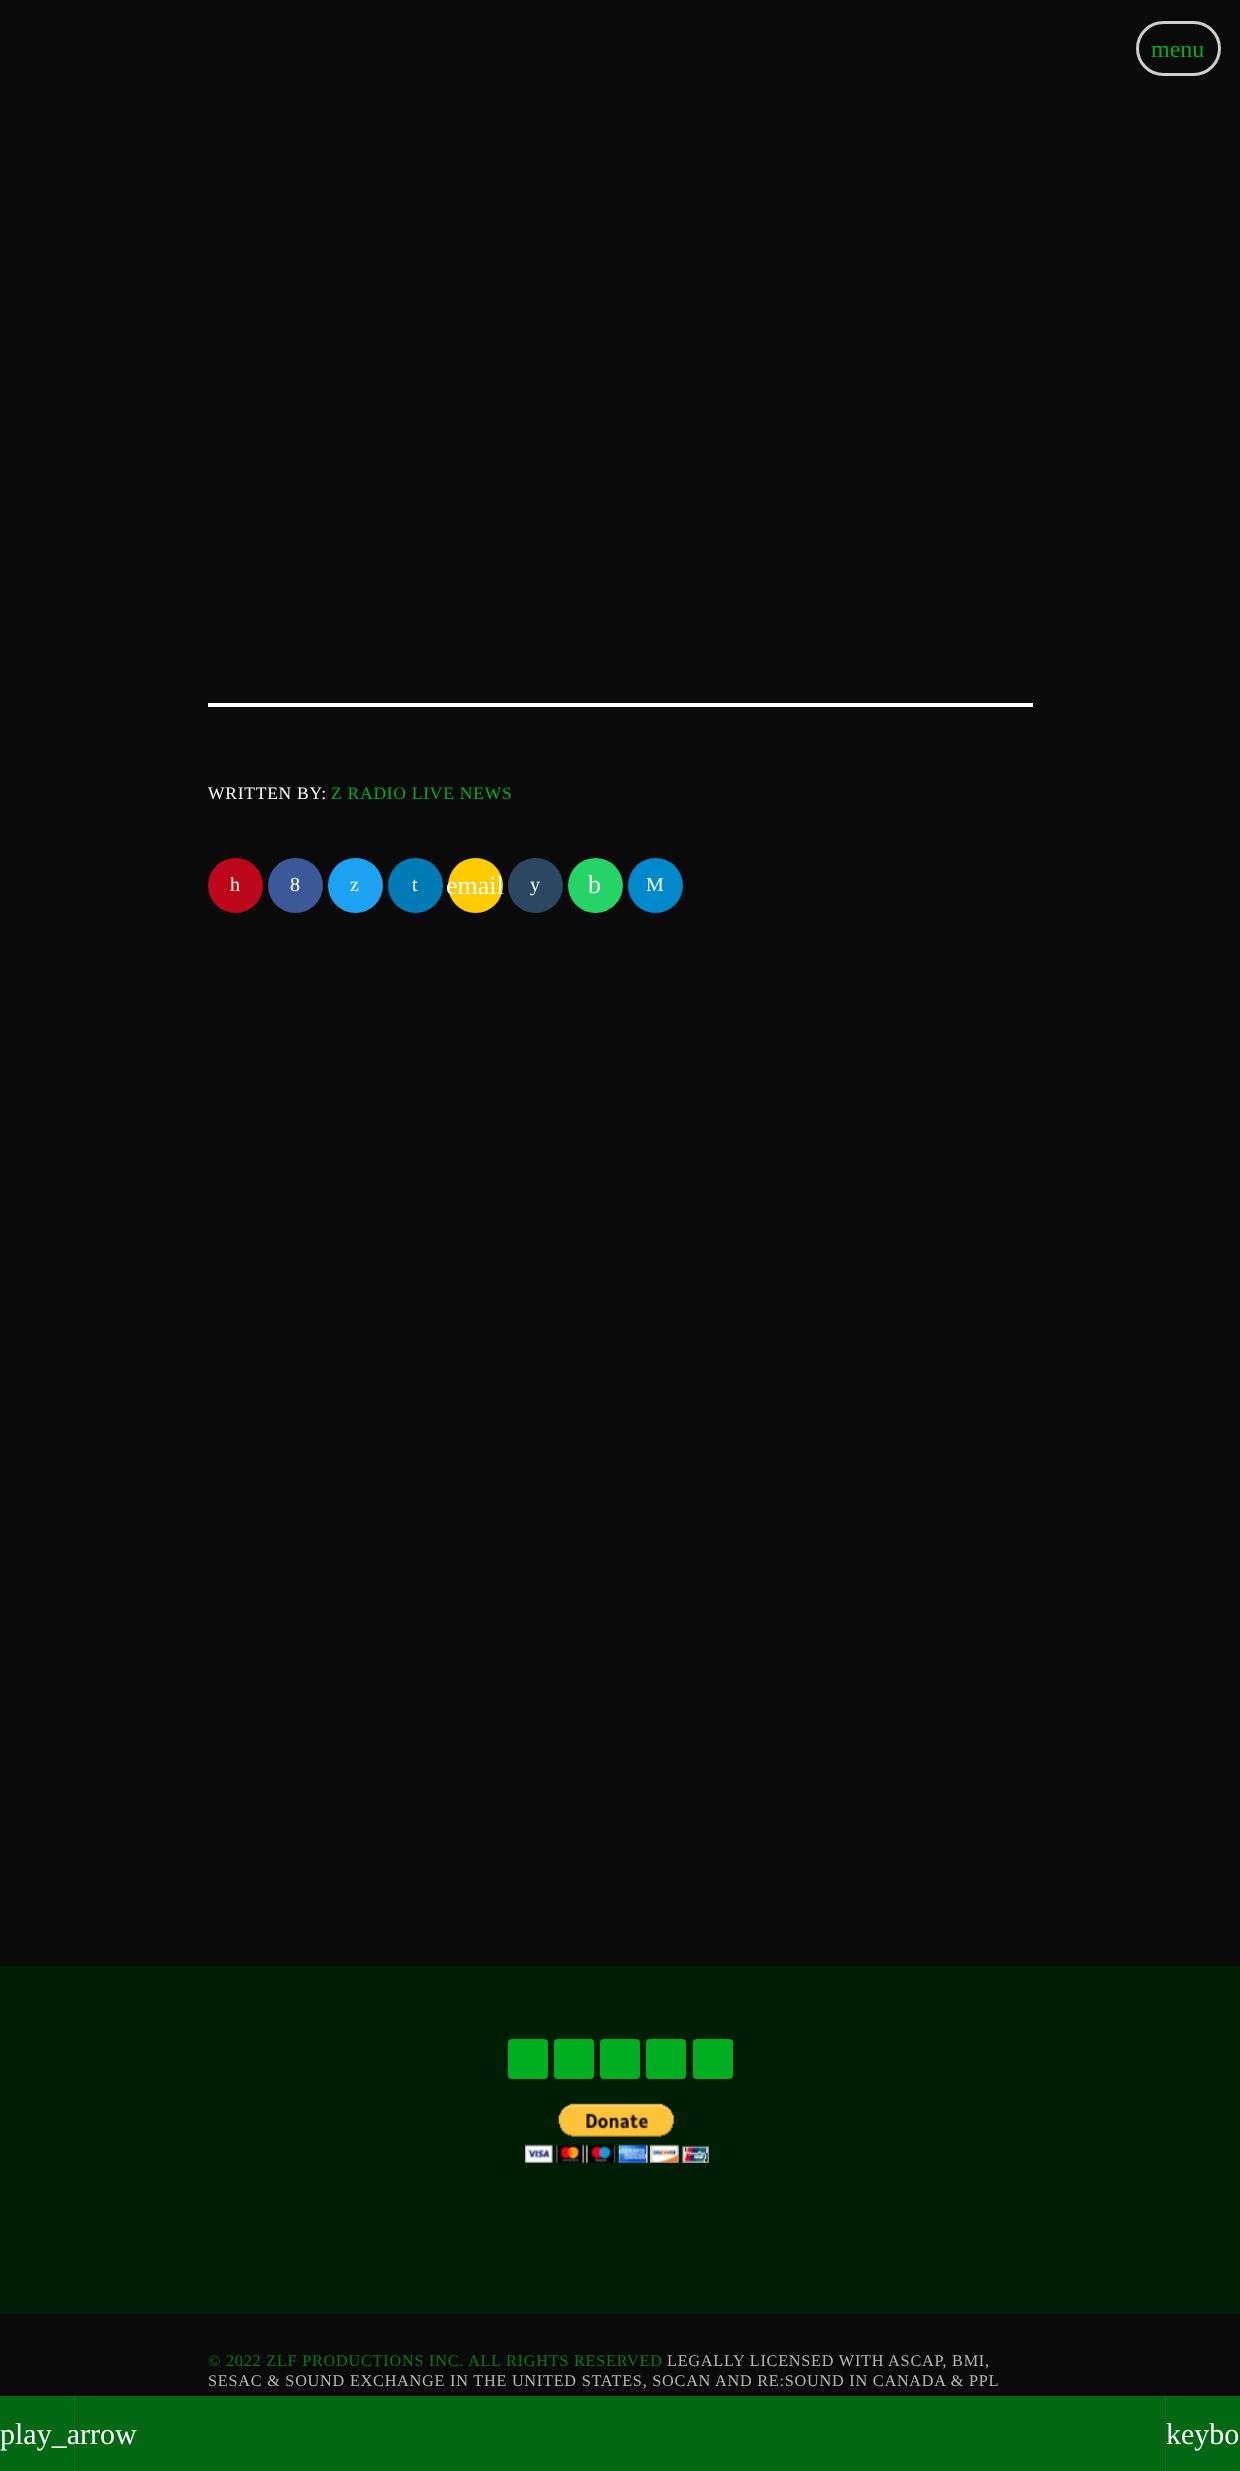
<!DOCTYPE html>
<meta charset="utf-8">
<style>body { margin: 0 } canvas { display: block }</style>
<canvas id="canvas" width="1240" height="2471"></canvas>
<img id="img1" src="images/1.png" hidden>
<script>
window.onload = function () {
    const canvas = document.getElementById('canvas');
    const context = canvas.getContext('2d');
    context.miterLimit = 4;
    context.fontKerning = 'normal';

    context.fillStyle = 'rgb(10, 10, 10)';
    context.fillRect(0, 0, 1240, 2471);
    context.beginPath();
    context.roundRect(1137.5, 22.5, 82, 52, 26);
    context.strokeStyle = 'rgb(206, 206, 206)';
    context.lineWidth = 3;
    context.stroke();
    context.fillStyle = 'rgb(255, 255, 255)';
    context.fillRect(208, 703, 825, 4);
    context.fillStyle = 'rgb(189, 8, 28)';
    context.beginPath();
    context.arc(235.5, 885.5, 27.5, 0, 2 * Math.PI);
    context.fill();
    context.fillStyle = 'rgb(59, 89, 152)';
    context.beginPath();
    context.arc(295.5, 885.5, 27.5, 0, 2 * Math.PI);
    context.fill();
    context.fillStyle = 'rgb(29, 161, 242)';
    context.beginPath();
    context.arc(355.5, 885.5, 27.5, 0, 2 * Math.PI);
    context.fill();
    context.fillStyle = 'rgb(0, 123, 181)';
    context.beginPath();
    context.arc(415.5, 885.5, 27.5, 0, 2 * Math.PI);
    context.fill();
    context.fillStyle = 'rgb(255, 204, 0)';
    context.beginPath();
    context.arc(475.5, 885.5, 27.5, 0, 2 * Math.PI);
    context.fill();
    context.fillStyle = 'rgb(44, 71, 98)';
    context.beginPath();
    context.arc(535.5, 885.5, 27.5, 0, 2 * Math.PI);
    context.fill();
    context.fillStyle = 'rgb(37, 211, 102)';
    context.beginPath();
    context.arc(595.5, 885.5, 27.5, 0, 2 * Math.PI);
    context.fill();
    context.fillStyle = 'rgb(0, 136, 204)';
    context.beginPath();
    context.arc(655.5, 885.5, 27.5, 0, 2 * Math.PI);
    context.fill();
    context.fillStyle = 'rgb(0, 30, 6)';
    context.fillRect(0, 1966, 1240, 348);
    context.fillStyle = 'rgb(0, 174, 33)';
    context.beginPath();
    context.roundRect(508, 2039, 40, 40, 4);
    context.fill();
    context.beginPath();
    context.roundRect(554, 2039, 40, 40, 4);
    context.fill();
    context.beginPath();
    context.roundRect(600, 2039, 40, 40, 4);
    context.fill();
    context.beginPath();
    context.roundRect(646, 2039, 40, 40, 4);
    context.fill();
    context.beginPath();
    context.roundRect(693, 2039, 40, 40, 4);
    context.fill();
    context.drawImage(document.getElementById('img1'), 525, 2103, 184, 60);
    context.fillStyle = 'rgb(2, 104, 20)';
    context.fillRect(0, 2396, 1240, 75);
    context.fillStyle = 'rgb(31, 103, 44)';
    context.fillRect(74, 2396, 1, 75);
    context.fillRect(1165, 2396, 1, 75);
    context.font = '24px Liberation Serif';
    context.fillStyle = 'rgb(0, 174, 33)';
    context.fillText('menu', 1151, 57);
    context.letterSpacing = '0.75px';
    context.font = '17.5px Liberation Serif';
    context.fillStyle = 'rgb(255, 255, 255)';
    context.fillText('WRITTEN BY:', 208, 799);
    context.fillStyle = 'rgb(0, 174, 33)';
    context.fillText('Z RADIO LIVE NEWS', 331, 799);
    context.font = '20px Liberation Serif';
    context.fillStyle = 'rgb(255, 255, 255)';
    context.fillText('h', 230, 891);
    context.fillText('8', 290, 891);
    context.fillText('z', 350, 891);
    context.fillText('t', 412, 891);
    context.letterSpacing = '0px';
    context.font = '26px Liberation Serif';
    context.fillText('email', 446, 894);
    context.letterSpacing = '0.75px';
    context.font = '20px Liberation Serif';
    context.fillText('y', 530, 891);
    context.font = '26px Liberation Serif';
    context.fillText('b', 588, 893);
    context.font = '20px Liberation Serif';
    context.fillText('M', 646, 891);
    context.font = '16.25px Liberation Serif';
    context.fillStyle = 'rgb(3, 125, 26)';
    context.fillText('© 2022 ZLF PRODUCTIONS INC. ALL RIGHTS RESERVED', 208, 2366);
    context.fillStyle = 'rgb(182, 182, 182)';
    context.fillText('LEGALLY LICENSED WITH ASCAP, BMI,', 667, 2366);
    context.fillText('SESAC & SOUND EXCHANGE IN THE UNITED STATES, SOCAN AND RE:SOUND IN CANADA & PPL', 208, 2386);
    context.letterSpacing = '0px';
    context.font = '30px Liberation Serif';
    context.fillStyle = 'rgb(255, 255, 255)';
    context.fillText('play_arrow', 0, 2444);
    context.fillText('keybo', 1166, 2444);
};
</script>
